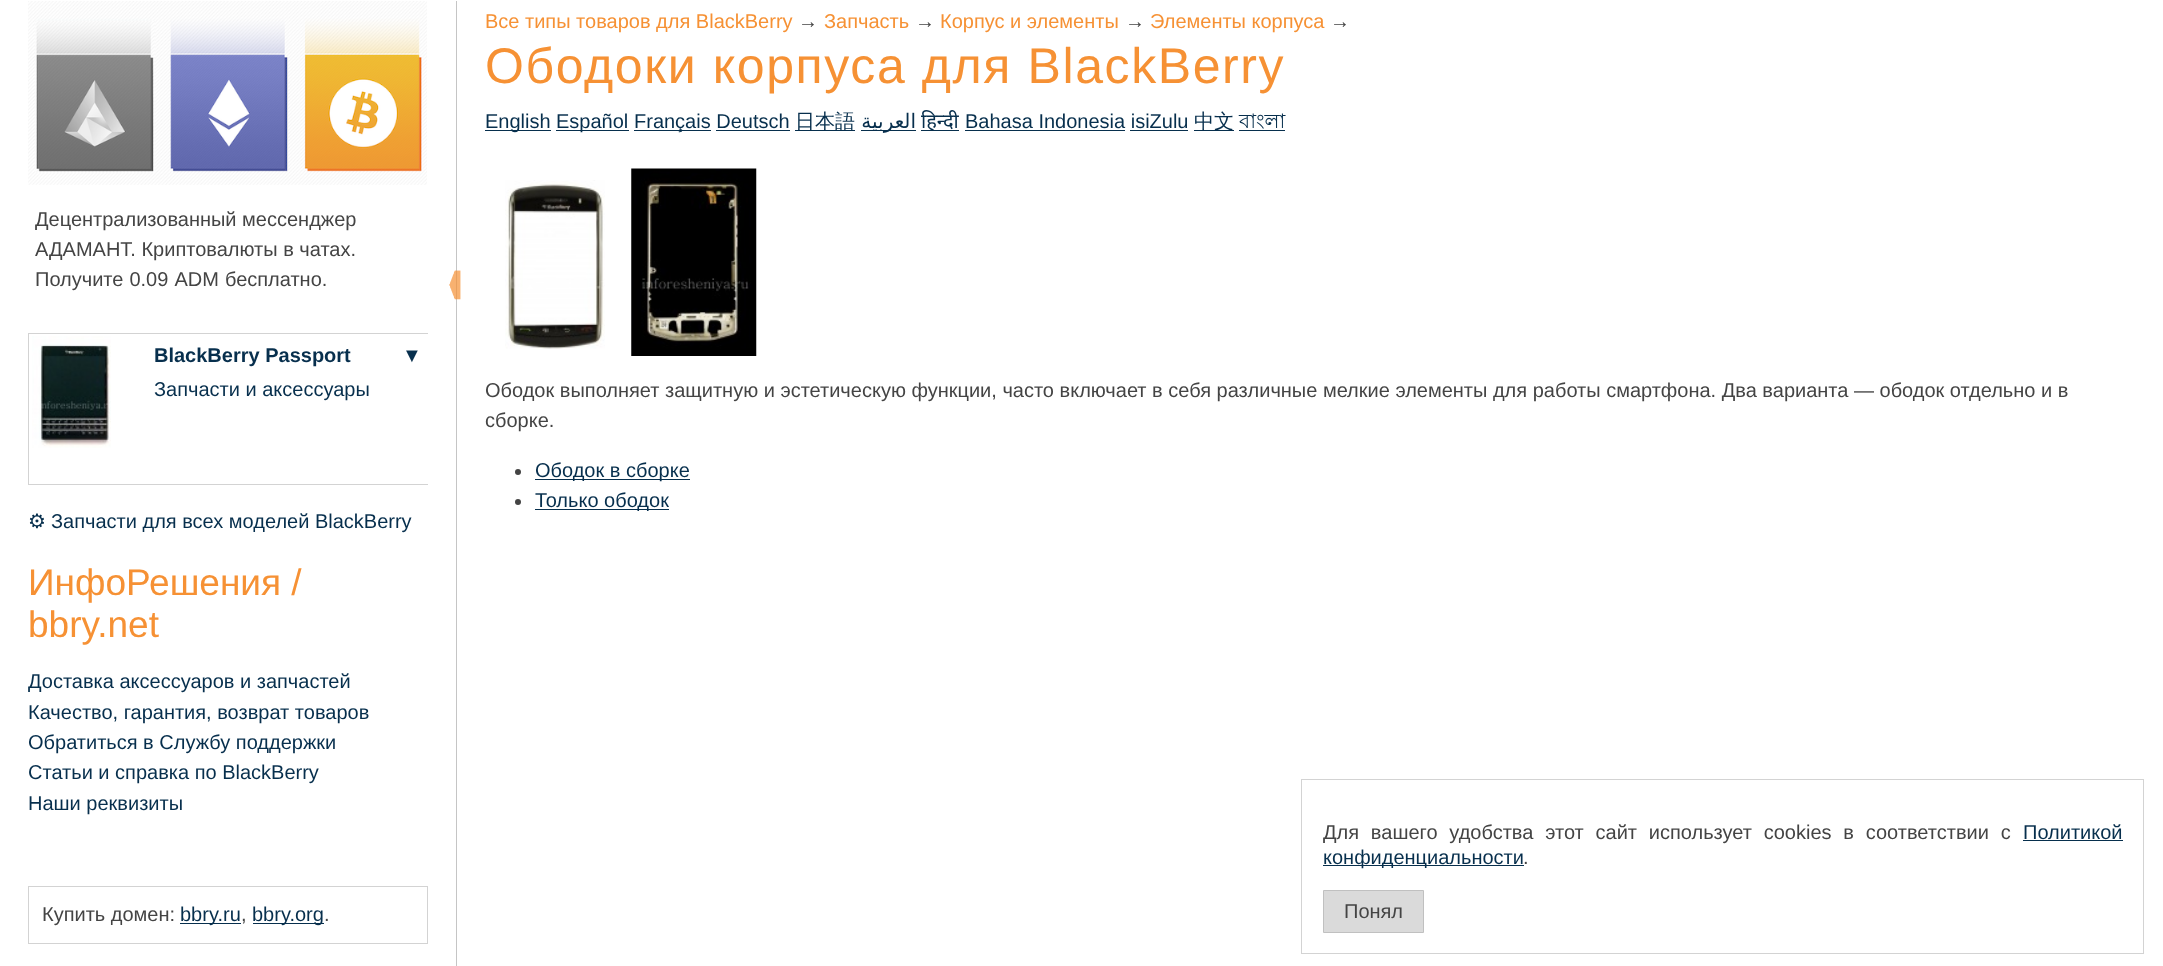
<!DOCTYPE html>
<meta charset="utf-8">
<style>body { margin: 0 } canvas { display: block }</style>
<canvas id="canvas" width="2163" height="966"></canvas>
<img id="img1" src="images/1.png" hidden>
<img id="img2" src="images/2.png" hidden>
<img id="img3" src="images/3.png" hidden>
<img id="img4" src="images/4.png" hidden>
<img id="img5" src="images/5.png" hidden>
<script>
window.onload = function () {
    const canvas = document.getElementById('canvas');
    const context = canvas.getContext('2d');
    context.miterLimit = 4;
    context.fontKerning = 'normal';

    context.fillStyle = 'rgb(255, 255, 255)';
    context.fillRect(0, 0, 2163, 966);
    context.fillStyle = 'rgb(197, 197, 197)';
    context.fillRect(456, 1, 1, 965);
    context.drawImage(document.getElementById('img1'), 28, 1, 399, 184);
    context.save();
    context.beginPath();
    context.rect(28, 1, 400, 963);
    context.clip();
    context.strokeStyle = 'rgb(211, 211, 211)';
    context.strokeRect(28.5, 333.5, 401, 151);
    context.restore();
    context.drawImage(document.getElementById('img2'), 32, 336, 79, 112);
    context.strokeStyle = 'rgb(211, 211, 211)';
    context.strokeRect(28.5, 886.5, 399, 57);
    context.fillStyle = 'rgb(7, 47, 77)';
    context.fillRect(180, 923, 61, 1);
    context.fillRect(253, 923, 71, 1);
    context.fillRect(485, 130, 66, 1);
    context.fillRect(556, 130, 73, 1);
    context.fillRect(634, 130, 77, 1);
    context.fillRect(795, 130, 60, 1);
    context.fillRect(861, 130, 55, 1);
    context.fillRect(921, 130, 38, 1);
    context.fillRect(965, 130, 160, 1);
    context.fillRect(1194, 130, 40, 1);
    context.fillRect(1239, 130, 46, 1);
    context.fillRect(716, 130, 74, 1);
    context.fillRect(1130, 130, 58, 1);
    context.drawImage(document.getElementById('img3'), 449, 270, 12, 30);
    context.drawImage(document.getElementById('img4'), 505, 180, 100, 169);
    context.drawImage(document.getElementById('img5'), 631, 168, 126, 188);
    context.fillStyle = 'rgb(68, 68, 68)';
    context.beginPath();
    context.arc(518, 472, 3, 0, 2 * Math.PI);
    context.fill();
    context.fillStyle = 'rgb(7, 47, 77)';
    context.fillRect(535, 479, 155, 1);
    context.fillStyle = 'rgb(68, 68, 68)';
    context.beginPath();
    context.arc(518, 502, 3, 0, 2 * Math.PI);
    context.fill();
    context.fillStyle = 'rgb(7, 47, 77)';
    context.fillRect(535, 509, 134, 1);
    context.strokeRect(1301.5, 779.5, 842, 174);
    context.fillRect(2023, 840, 100, 1);
    context.fillRect(1323, 865, 201, 1);
    context.fillStyle = 'rgb(218, 218, 218)';
    context.beginPath();
    context.rect(1323.5, 890.5, 100, 42);
    context.fill();
    context.strokeStyle = 'rgb(192, 192, 192)';
    context.stroke();
    context.font = '20px Liberation Sans';
    context.fillStyle = 'rgb(68, 68, 68)';
    context.fillText('Децентрализованный мессенджер', 35, 226);
    context.fillText('АДАМАНТ. Криптовалюты в чатах.', 35, 256);
    context.wordSpacing = '0.5px';
    context.fillText('Получите 0.09 ADM бесплатно.', 35, 286);
    context.wordSpacing = '0px';
    context.font = 'bold 20px Liberation Sans';
    context.fillStyle = 'rgb(7, 47, 77)';
    context.fillText('BlackBerry Passport', 154, 362);
    context.font = '20px Liberation Sans';
    context.fillText('▼', 402, 362);
    context.fillText('Запчасти и аксессуары', 154, 396);
    context.font = '20px DejaVu Sans';
    context.fillText('⚙', 28, 528);
    context.font = '20px Liberation Sans';
    context.fillText('Запчасти для всех моделей BlackBerry', 51, 528);
    context.font = '37px Liberation Sans';
    context.fillStyle = 'rgb(246, 145, 52)';
    context.fillText('ИнфоРешения /', 28, 595);
    context.fillText('bbry.net', 28, 637);
    context.font = '20px Liberation Sans';
    context.fillStyle = 'rgb(7, 47, 77)';
    context.fillText('Доставка аксессуаров и запчастей', 28, 688);
    context.fillText('Качество, гарантия, возврат товаров', 28, 719);
    context.fillText('Обратиться в Службу поддержки', 28, 749);
    context.fillText('Статьи и справка по BlackBerry', 28, 779);
    context.fillText('Наши реквизиты', 28, 810);
    context.fillStyle = 'rgb(68, 68, 68)';
    context.fillText('Купить домен:', 42, 921);
    context.fillStyle = 'rgb(7, 47, 77)';
    context.fillText('bbry.ru', 180, 921);
    context.fillStyle = 'rgb(68, 68, 68)';
    context.fillText(',', 241, 921);
    context.fillStyle = 'rgb(7, 47, 77)';
    context.fillText('bbry.org', 252, 921);
    context.fillStyle = 'rgb(68, 68, 68)';
    context.fillText('.', 324, 921);
    context.fillStyle = 'rgb(246, 145, 52)';
    context.fillText('Все типы товаров для BlackBerry', 485, 28);
    context.fillStyle = 'rgb(68, 68, 68)';
    context.fillText('→', 798, 28);
    context.fillStyle = 'rgb(246, 145, 52)';
    context.fillText('Запчасть', 824, 28);
    context.fillStyle = 'rgb(68, 68, 68)';
    context.fillText('→', 915, 28);
    context.fillStyle = 'rgb(246, 145, 52)';
    context.fillText('Корпус и элементы', 940, 28);
    context.fillStyle = 'rgb(68, 68, 68)';
    context.fillText('→', 1125, 28);
    context.fillStyle = 'rgb(246, 145, 52)';
    context.fillText('Элементы корпуса', 1150, 28);
    context.fillStyle = 'rgb(68, 68, 68)';
    context.fillText('→', 1330, 28);
    context.letterSpacing = '1.6px';
    context.font = '50px Liberation Sans';
    context.fillStyle = 'rgb(246, 145, 52)';
    context.fillText('Ободоки корпуса для BlackBerry', 485, 83);
    context.letterSpacing = '0px';
    context.font = '20px Liberation Sans';
    context.fillStyle = 'rgb(7, 47, 77)';
    context.fillText('English', 485, 128);
    context.fillText('Español', 556, 128);
    context.fillText('Français Deutsch', 634, 128);
    context.font = '500 20px WenQuanYi Zen Hei';
    context.fillText('日本語', 795, 128);
    context.direction = 'rtl';
    context.font = '20px DejaVu Sans';
    context.fillText('العربية', 916, 128);
    context.direction = 'ltr';
    context.font = '20px Noto Sans';
    context.fillText('हिन्दी', 921, 128);
    context.font = '20px Liberation Sans';
    context.fillText('Bahasa Indonesia isiZulu', 965, 128);
    context.font = '500 20px WenQuanYi Zen Hei';
    context.fillText('中文', 1194, 128);
    context.font = '20px Lohit Bengali';
    context.fillText('বাংলা', 1239, 128);
    context.font = '20px Liberation Sans';
    context.fillStyle = 'rgb(68, 68, 68)';
    context.fillText('Ободок выполняет защитную и эстетическую функции, часто включает в себя различные мелкие элементы для работы смартфона. Два варианта — ободок отдельно и в', 485, 397);
    context.fillText('сборке.', 485, 427);
    context.fillStyle = 'rgb(7, 47, 77)';
    context.fillText('Ободок в сборке', 535, 477);
    context.fillText('Только ободок', 535, 507);
    context.wordSpacing = '6.25px';
    context.fillStyle = 'rgb(68, 68, 68)';
    context.fillText('Для вашего удобства этот сайт использует cookies в соответствии с', 1323, 839);
    context.wordSpacing = '0px';
    context.fillStyle = 'rgb(7, 47, 77)';
    context.fillText('Политикой', 2023, 839);
    context.fillText('конфиденциальности', 1323, 864);
    context.fillStyle = 'rgb(68, 68, 68)';
    context.fillText('.', 1523, 864);
    context.fillText('Понял', 1344, 918);
};
</script>
